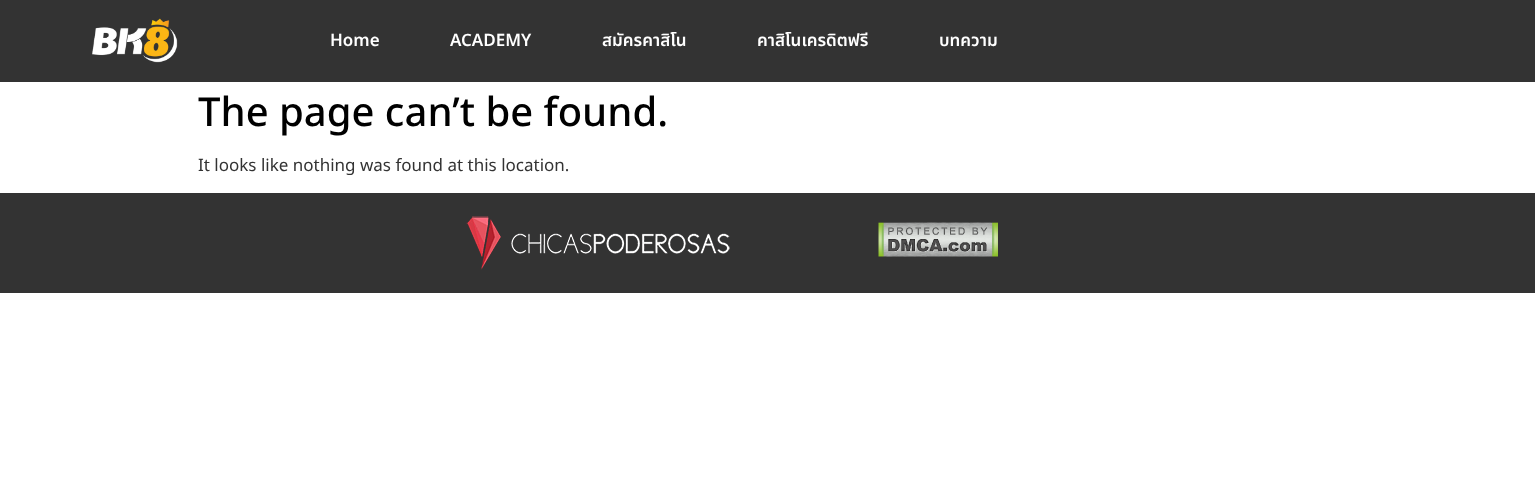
<!DOCTYPE html>
<meta charset="utf-8">
<style>body { margin: 0 } canvas { display: block }</style>
<canvas id="canvas" width="1535" height="503"></canvas>
<img id="img1" src="images/1.png" hidden>
<img id="img2" src="images/2.png" hidden>
<img id="img3" src="images/3.png" hidden>
<script>
window.onload = function () {
    const canvas = document.getElementById('canvas');
    const context = canvas.getContext('2d');
    context.miterLimit = 4;
    context.fontKerning = 'normal';

    context.fillStyle = 'rgb(255, 255, 255)';
    context.fillRect(0, 0, 1535, 503);
    context.fillStyle = 'rgb(51, 51, 51)';
    context.fillRect(0, 0, 1535, 82);
    context.drawImage(document.getElementById('img1'), 92, 18, 86, 45);
    context.fillRect(0, 193, 1535, 100);
    context.drawImage(document.getElementById('img2'), 466, 216, 264, 54);
    context.drawImage(document.getElementById('img3'), 878, 222, 120, 35);
    context.font = '600 17px Noto Sans Thai';
    context.fillStyle = 'rgb(255, 255, 255)';
    context.fillText('Home', 330, 46);
    context.fillText('ACADEMY', 450, 46);
    context.fillText('สมัครคาสิโน', 602, 46);
    context.fillText('คาสิโนเครดิตฟรี', 757, 46);
    context.fillText('บทความ', 939, 46);
    context.font = '500 40px Noto Sans Thai';
    context.fillStyle = 'rgb(0, 0, 0)';
    context.fillText('The page can’t be found.', 198, 126);
    context.font = '17px Noto Sans Thai';
    context.fillStyle = 'rgb(51, 51, 51)';
    context.fillText('It looks like nothing was found at this location.', 198, 171);
};
</script>
